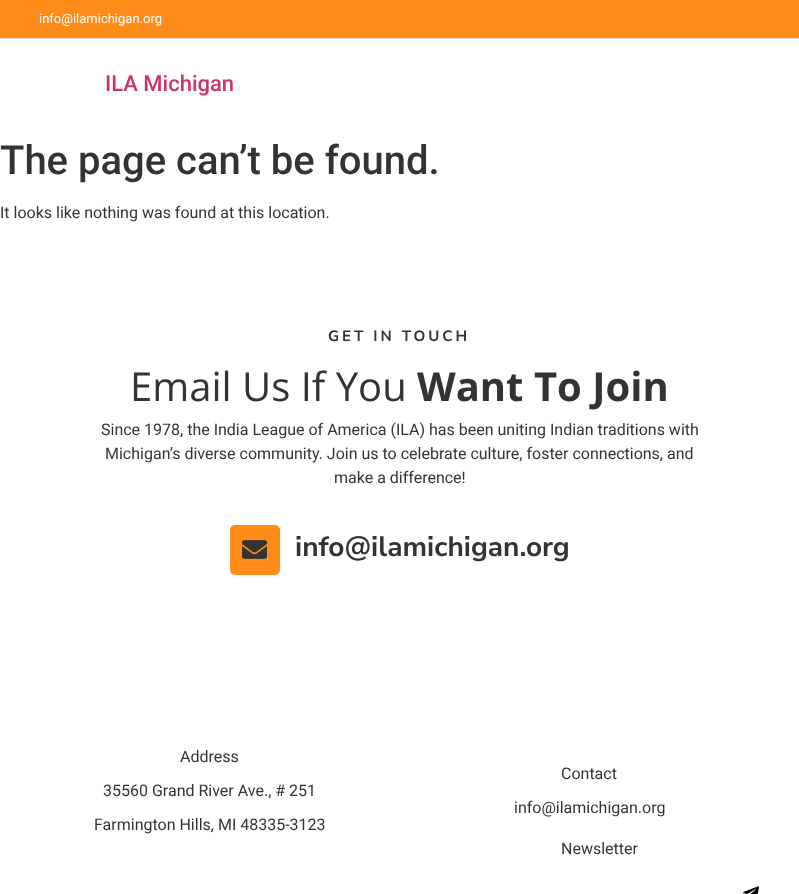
<!DOCTYPE html>
<meta charset="utf-8">
<style>body { margin: 0 } canvas { display: block }</style>
<canvas id="canvas" width="799" height="894"></canvas>
<img id="img1" src="images/1.png" hidden>
<img id="img2" src="images/2.png" hidden>
<script>
window.onload = function () {
    const canvas = document.getElementById('canvas');
    const context = canvas.getContext('2d');
    context.miterLimit = 4;
    context.fontKerning = 'normal';

    context.fillStyle = 'rgb(255, 255, 255)';
    context.fillRect(0, 0, 799, 894);
    context.fillStyle = 'rgb(255, 139, 24)';
    context.fillRect(0, 0, 799, 38);
    context.fillStyle = 'rgb(212, 214, 227)';
    context.fillRect(0, 38, 799, 1);
    context.fillStyle = 'rgb(255, 139, 24)';
    context.beginPath();
    context.roundRect(230, 525, 50, 50, 5);
    context.fill();
    context.drawImage(document.getElementById('img1'), 242, 540, 25, 19);
    context.drawImage(document.getElementById('img2'), 743, 886, 16, 8);
    context.font = '13px Roboto';
    context.fillStyle = 'rgb(255, 255, 255)';
    context.fillText('info@ilamichigan.org', 39, 23);
    context.font = '500 22px Roboto';
    context.fillStyle = 'rgb(204, 51, 102)';
    context.fillText('ILA Michigan', 105, 91);
    context.font = '500 40px Roboto';
    context.fillStyle = 'rgb(51, 51, 51)';
    context.fillText('The page can’t be found.', 0, 174);
    context.font = '16px Roboto';
    context.fillText('It looks like nothing was found at this location.', 0, 218);
    context.letterSpacing = '3px';
    context.font = 'bold 15px Nunito Sans';
    context.fillText('GET IN TOUCH', 328, 341);
    context.letterSpacing = '0px';
    context.font = '40px Open Sans';
    context.fillText('Email Us If You', 130, 401);
    context.font = 'bold 40px Open Sans';
    context.fillText('Want To Join', 417, 401);
    context.font = '16px Roboto';
    context.fillText('Since 1978, the India League of America (ILA) has been uniting Indian traditions with', 101, 435);
    context.fillText('Michigan’s diverse community. Join us to celebrate culture, foster connections, and', 105, 459);
    context.fillText('make a difference!', 334, 483);
    context.font = 'bold 28px Nunito Sans';
    context.fillText('info@ilamichigan.org', 295, 556);
    context.font = '16px Roboto';
    context.fillText('Address', 180, 762);
    context.fillText('35560 Grand River Ave., # 251', 103, 796);
    context.fillText('Farmington Hills, MI 48335-3123', 94, 830);
    context.fillText('Contact', 561, 779);
    context.fillText('info@ilamichigan.org', 514, 813);
    context.fillText('Newsletter', 561, 854);
};
</script>
